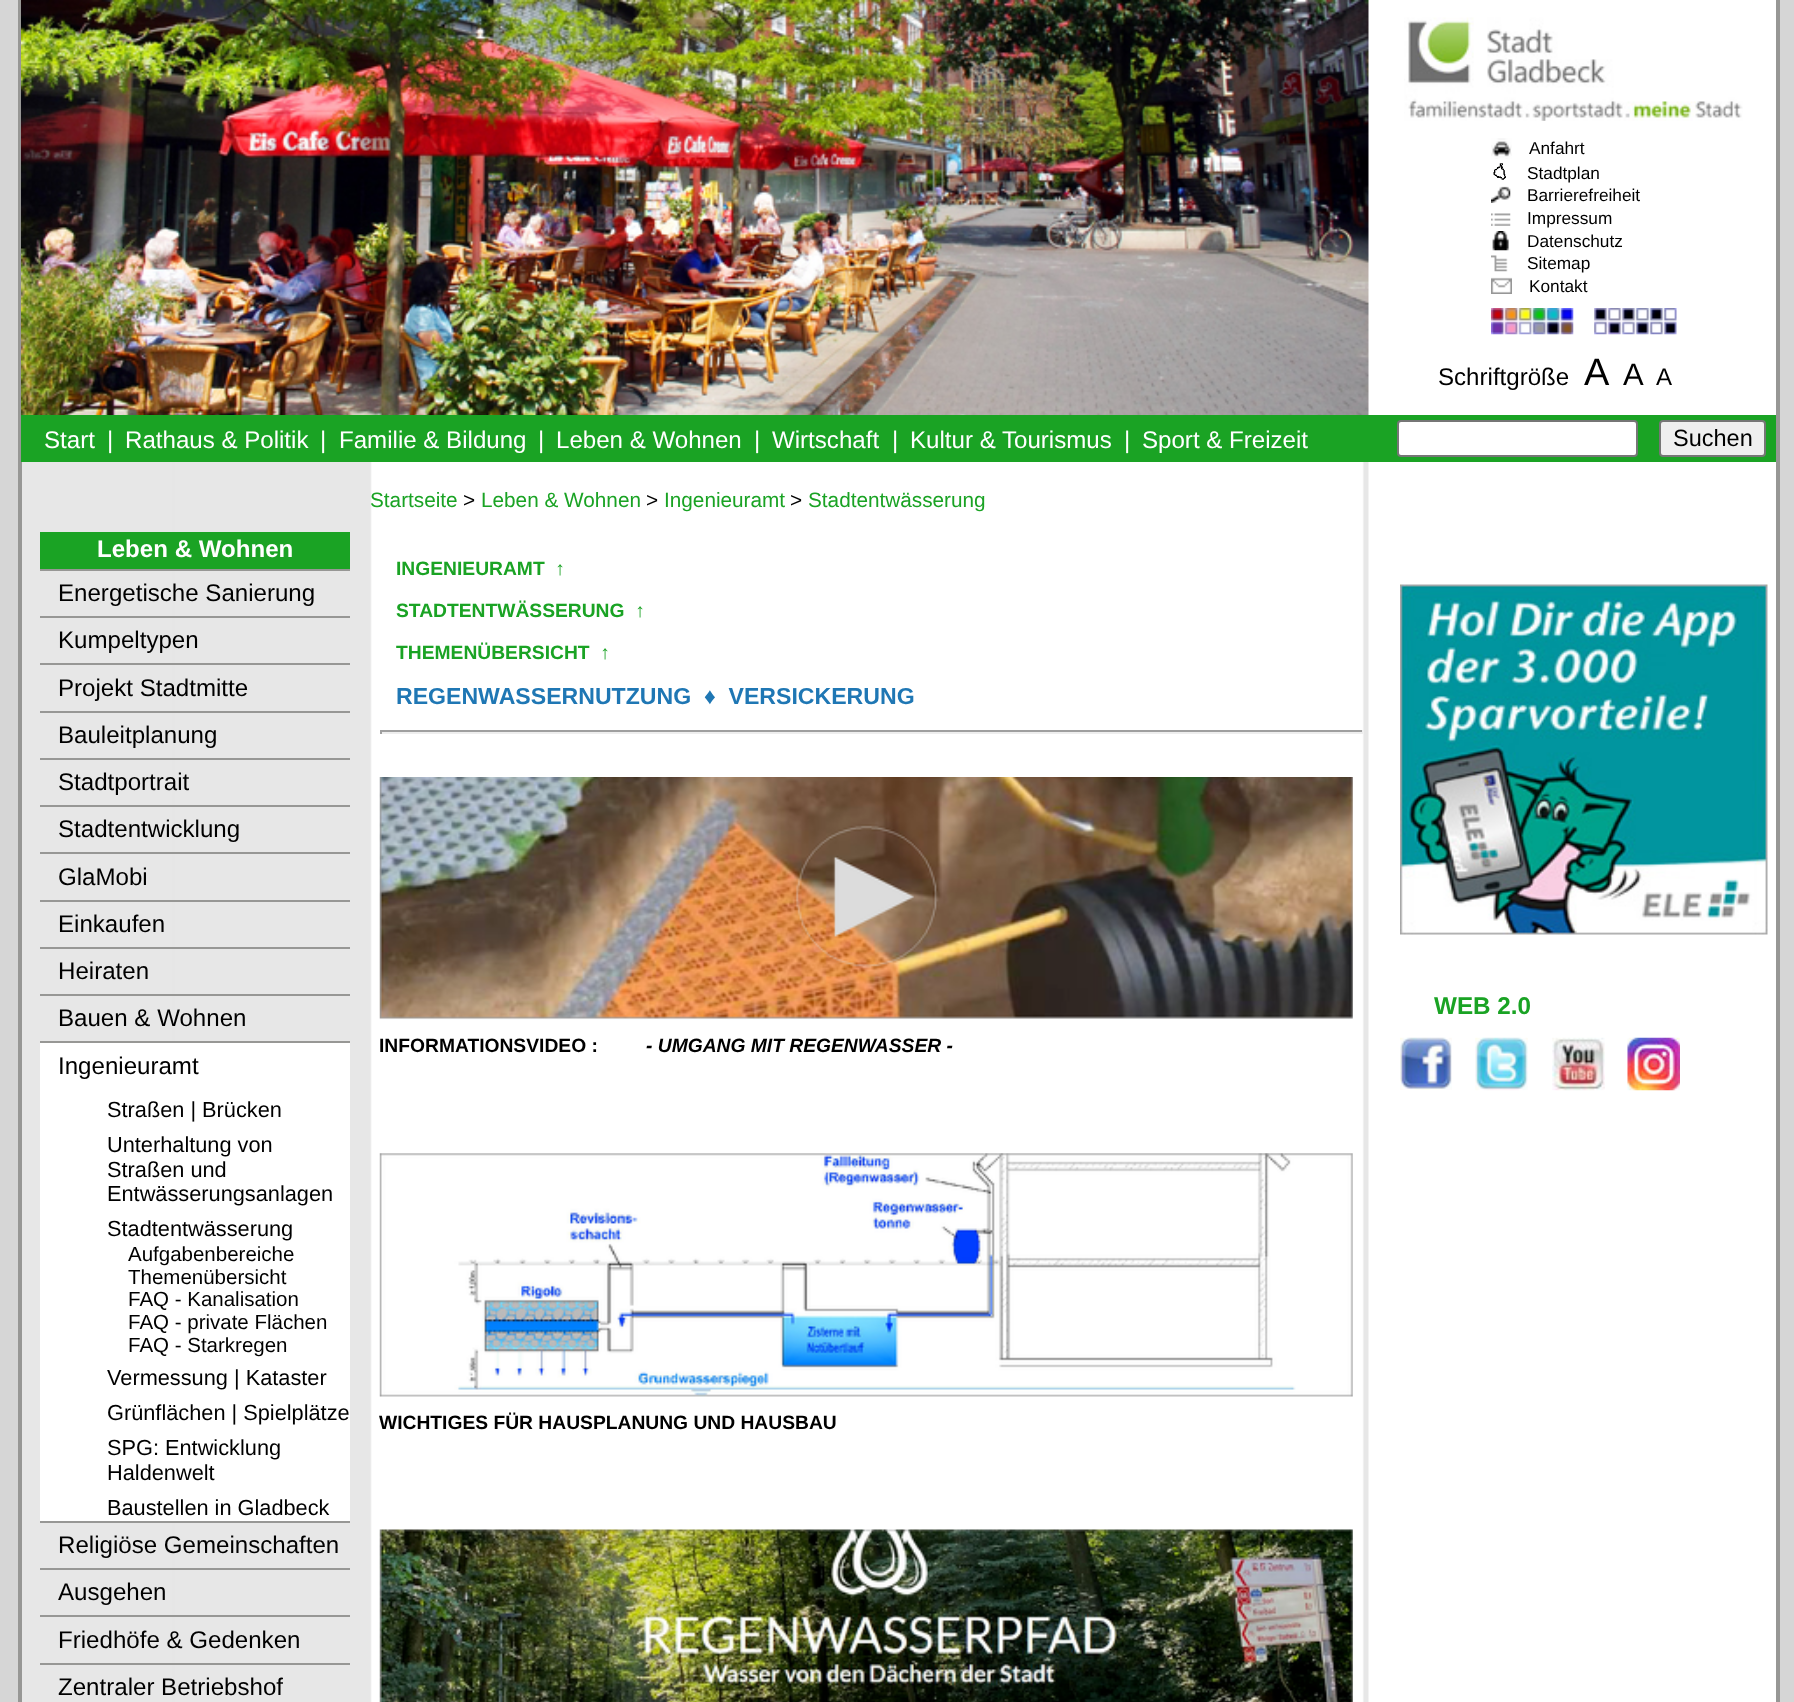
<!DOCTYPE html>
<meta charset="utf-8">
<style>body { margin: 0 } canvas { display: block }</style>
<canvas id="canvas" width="1794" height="1702"></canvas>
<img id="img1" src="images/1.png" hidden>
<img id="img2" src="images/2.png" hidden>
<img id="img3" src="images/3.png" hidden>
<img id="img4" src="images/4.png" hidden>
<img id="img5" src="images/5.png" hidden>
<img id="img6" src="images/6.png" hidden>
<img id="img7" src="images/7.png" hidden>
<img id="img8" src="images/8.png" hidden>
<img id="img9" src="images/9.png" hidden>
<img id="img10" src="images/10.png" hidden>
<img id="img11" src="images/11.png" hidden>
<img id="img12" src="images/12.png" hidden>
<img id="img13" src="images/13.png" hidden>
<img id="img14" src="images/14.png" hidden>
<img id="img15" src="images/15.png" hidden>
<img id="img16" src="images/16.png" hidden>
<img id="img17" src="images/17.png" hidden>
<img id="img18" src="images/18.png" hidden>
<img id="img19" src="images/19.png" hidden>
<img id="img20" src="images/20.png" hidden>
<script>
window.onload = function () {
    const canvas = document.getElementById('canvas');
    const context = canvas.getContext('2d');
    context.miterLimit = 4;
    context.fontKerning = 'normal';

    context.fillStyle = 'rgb(214, 214, 214)';
    context.fillRect(0, 0, 1794, 1702);
    context.drawImage(document.getElementById('img1'), 22, 462, 1754, 1240);
    context.fillStyle = 'rgb(151, 151, 149)';
    context.fillRect(1776, 0, 4, 1702);
    context.fillRect(18, 0, 4, 1702);
    context.fillStyle = 'rgb(255, 255, 255)';
    context.fillRect(1368, 0, 408, 415);
    context.drawImage(document.getElementById('img2'), 21, 0, 1348, 415);
    context.drawImage(document.getElementById('img3'), 1404, 17, 339, 104);
    context.drawImage(document.getElementById('img4'), 1491, 138, 21, 21);
    context.drawImage(document.getElementById('img5'), 1493, 163, 13, 17);
    context.drawImage(document.getElementById('img6'), 1491, 186, 20, 17);
    context.drawImage(document.getElementById('img7'), 1491, 213, 20, 13);
    context.drawImage(document.getElementById('img8'), 1492, 231, 17, 20);
    context.drawImage(document.getElementById('img9'), 1491, 255, 17, 17);
    context.drawImage(document.getElementById('img10'), 1491, 277, 21, 17);
    context.drawImage(document.getElementById('img11'), 1491, 308, 83, 27);
    context.drawImage(document.getElementById('img12'), 1594, 308, 83, 27);
    context.fillStyle = 'rgb(26, 163, 36)';
    context.fillRect(21, 415, 1755, 47);
    context.fillStyle = 'rgb(255, 255, 255)';
    context.beginPath();
    context.roundRect(1398, 421, 239, 35, 3);
    context.fill();
    context.strokeStyle = 'rgb(118, 118, 118)';
    context.lineWidth = 2;
    context.stroke();
    context.fillStyle = 'rgb(239, 239, 239)';
    context.beginPath();
    context.roundRect(1660, 421, 105, 35, 3);
    context.fill();
    context.stroke();
    context.fillStyle = 'rgb(26, 163, 36)';
    context.fillRect(40, 532, 310, 37);
    context.fillStyle = 'rgb(151, 151, 149)';
    context.fillRect(40, 569, 310, 2);
    context.fillRect(40, 616, 310, 2);
    context.fillRect(40, 663, 310, 2);
    context.fillRect(40, 711, 310, 2);
    context.fillRect(40, 758, 310, 2);
    context.fillRect(40, 805, 310, 2);
    context.fillRect(40, 852, 310, 2);
    context.fillRect(40, 900, 310, 2);
    context.fillRect(40, 947, 310, 2);
    context.fillRect(40, 994, 310, 2);
    context.fillStyle = 'rgb(255, 255, 255)';
    context.fillRect(40, 1043, 310, 478);
    context.fillStyle = 'rgb(151, 151, 149)';
    context.fillRect(40, 1041, 310, 2);
    context.fillRect(40, 1521, 310, 2);
    context.fillRect(40, 1568, 310, 2);
    context.fillRect(40, 1615, 310, 2);
    context.fillRect(40, 1663, 310, 2);
    context.fillStyle = 'rgb(159, 159, 159)';
    context.fillRect(380, 730, 983, 2);
    context.fillStyle = 'rgb(238, 238, 238)';
    context.fillRect(1362, 730, 1, 4);
    context.fillRect(380, 732, 983, 2);
    context.fillStyle = 'rgb(159, 159, 159)';
    context.fillRect(380, 730, 2, 4);
    context.drawImage(document.getElementById('img13'), 379, 777, 974, 243);
    context.drawImage(document.getElementById('img14'), 379, 1153, 974, 244);
    context.drawImage(document.getElementById('img15'), 379, 1529, 974, 173);
    context.drawImage(document.getElementById('img16'), 1400, 584, 368, 351);
    context.drawImage(document.getElementById('img17'), 1400, 1037, 52, 53);
    context.drawImage(document.getElementById('img18'), 1475, 1037, 53, 54);
    context.drawImage(document.getElementById('img19'), 1552, 1037, 53, 54);
    context.drawImage(document.getElementById('img20'), 1627, 1037, 53, 54);
    context.font = '17.25px Liberation Sans';
    context.fillStyle = 'rgb(0, 0, 0)';
    context.fillText('Anfahrt', 1529, 154);
    context.fillText('Stadtplan', 1527, 179);
    context.fillText('Barrierefreiheit', 1527, 201);
    context.fillText('Impressum', 1527, 224);
    context.fillText('Datenschutz', 1527, 247);
    context.fillText('Sitemap', 1527, 269);
    context.fillText('Kontakt', 1529, 292);
    context.font = '24.1px Liberation Sans';
    context.fillText('Schriftgröße', 1438, 385);
    context.font = '38px Liberation Sans';
    context.fillText('A', 1584, 385);
    context.font = '31px Liberation Sans';
    context.fillText('A', 1623, 385);
    context.font = '24.1px Liberation Sans';
    context.fillText('A', 1656, 385);
    context.fillStyle = 'rgb(255, 255, 255)';
    context.fillText('Start', 44, 448);
    context.fillText('|', 107, 448);
    context.fillText('Rathaus & Politik', 125, 448);
    context.fillText('|', 320, 448);
    context.fillText('Familie & Bildung', 339, 448);
    context.fillText('|', 538, 448);
    context.fillText('Leben & Wohnen', 556, 448);
    context.fillText('|', 754, 448);
    context.fillText('Wirtschaft', 772, 448);
    context.fillText('|', 892, 448);
    context.fillText('Kultur & Tourismus', 910, 448);
    context.fillText('|', 1124, 448);
    context.fillText('Sport & Freizeit', 1142, 448);
    context.font = '23.5px Liberation Sans';
    context.fillStyle = 'rgb(0, 0, 0)';
    context.fillText('Suchen', 1673, 446);
    context.font = '20.75px Liberation Sans';
    context.fillStyle = 'rgb(26, 163, 36)';
    context.fillText('Startseite', 370, 507);
    context.fillStyle = 'rgb(0, 0, 0)';
    context.fillText('>', 463, 507);
    context.fillStyle = 'rgb(26, 163, 36)';
    context.fillText('Leben & Wohnen', 481, 507);
    context.fillStyle = 'rgb(0, 0, 0)';
    context.fillText('>', 646, 507);
    context.fillStyle = 'rgb(26, 163, 36)';
    context.fillText('Ingenieuramt', 664, 507);
    context.fillStyle = 'rgb(0, 0, 0)';
    context.fillText('>', 790, 507);
    context.fillStyle = 'rgb(26, 163, 36)';
    context.fillText('Stadtentwässerung', 808, 507);
    context.font = 'bold 24.1px Liberation Sans';
    context.fillStyle = 'rgb(255, 255, 255)';
    context.fillText('Leben & Wohnen', 97, 557);
    context.font = '24.1px Liberation Sans';
    context.fillStyle = 'rgb(0, 0, 0)';
    context.fillText('Energetische Sanierung', 58, 601);
    context.fillText('Kumpeltypen', 58, 648);
    context.fillText('Projekt Stadtmitte', 58, 696);
    context.fillText('Bauleitplanung', 58, 743);
    context.fillText('Stadtportrait', 58, 790);
    context.fillText('Stadtentwicklung', 58, 837);
    context.fillText('GlaMobi', 58, 885);
    context.fillText('Einkaufen', 58, 932);
    context.fillText('Heiraten', 58, 979);
    context.fillText('Bauen & Wohnen', 58, 1026);
    context.fillText('Ingenieuramt', 58, 1074);
    context.font = '21.75px Liberation Sans';
    context.fillText('Straßen | Brücken', 107, 1117);
    context.fillText('Unterhaltung von', 107, 1152);
    context.fillText('Straßen und', 107, 1177);
    context.fillText('Entwässerungsanlagen', 107, 1201);
    context.fillText('Stadtentwässerung', 107, 1236);
    context.font = '20.5px Liberation Sans';
    context.fillText('Aufgabenbereiche', 128, 1261);
    context.fillText('Themenübersicht', 128, 1284);
    context.fillText('FAQ - Kanalisation', 128, 1306);
    context.fillText('FAQ - private Flächen', 128, 1329);
    context.fillText('FAQ - Starkregen', 128, 1352);
    context.font = '21.75px Liberation Sans';
    context.fillText('Vermessung | Kataster', 107, 1385);
    context.fillText('Grünflächen | Spielplätze', 107, 1420);
    context.fillText('SPG: Entwicklung', 107, 1455);
    context.fillText('Haldenwelt', 107, 1480);
    context.fillText('Baustellen in Gladbeck', 107, 1515);
    context.font = '24.1px Liberation Sans';
    context.fillText('Religiöse Gemeinschaften', 58, 1553);
    context.fillText('Ausgehen', 58, 1600);
    context.fillText('Friedhöfe & Gedenken', 58, 1648);
    context.fillText('Zentraler Betriebshof', 58, 1695);
    context.font = 'bold 19.25px Liberation Sans';
    context.fillStyle = 'rgb(26, 163, 36)';
    context.fillText('INGENIEURAMT  ↑', 396, 575);
    context.fillText('STADTENTWÄSSERUNG  ↑', 396, 617);
    context.fillText('THEMENÜBERSICHT  ↑', 396, 659);
    context.font = 'bold 23.1px Liberation Sans';
    context.fillStyle = 'rgb(31, 119, 180)';
    context.fillText('REGENWASSERNUTZUNG  ♦  VERSICKERUNG', 396, 704);
    context.font = 'bold 19.25px Liberation Sans';
    context.fillStyle = 'rgb(0, 0, 0)';
    context.fillText('INFORMATIONSVIDEO :', 379, 1052);
    context.font = 'italic bold 19.25px Liberation Sans';
    context.fillText('- UMGANG MIT REGENWASSER -', 646, 1052);
    context.font = 'bold 19.25px Liberation Sans';
    context.fillText('WICHTIGES FÜR HAUSPLANUNG UND HAUSBAU', 379, 1429);
    context.font = 'bold 24.25px Liberation Sans';
    context.fillStyle = 'rgb(26, 163, 36)';
    context.fillText('WEB 2.0', 1434, 1014);
};
</script>
